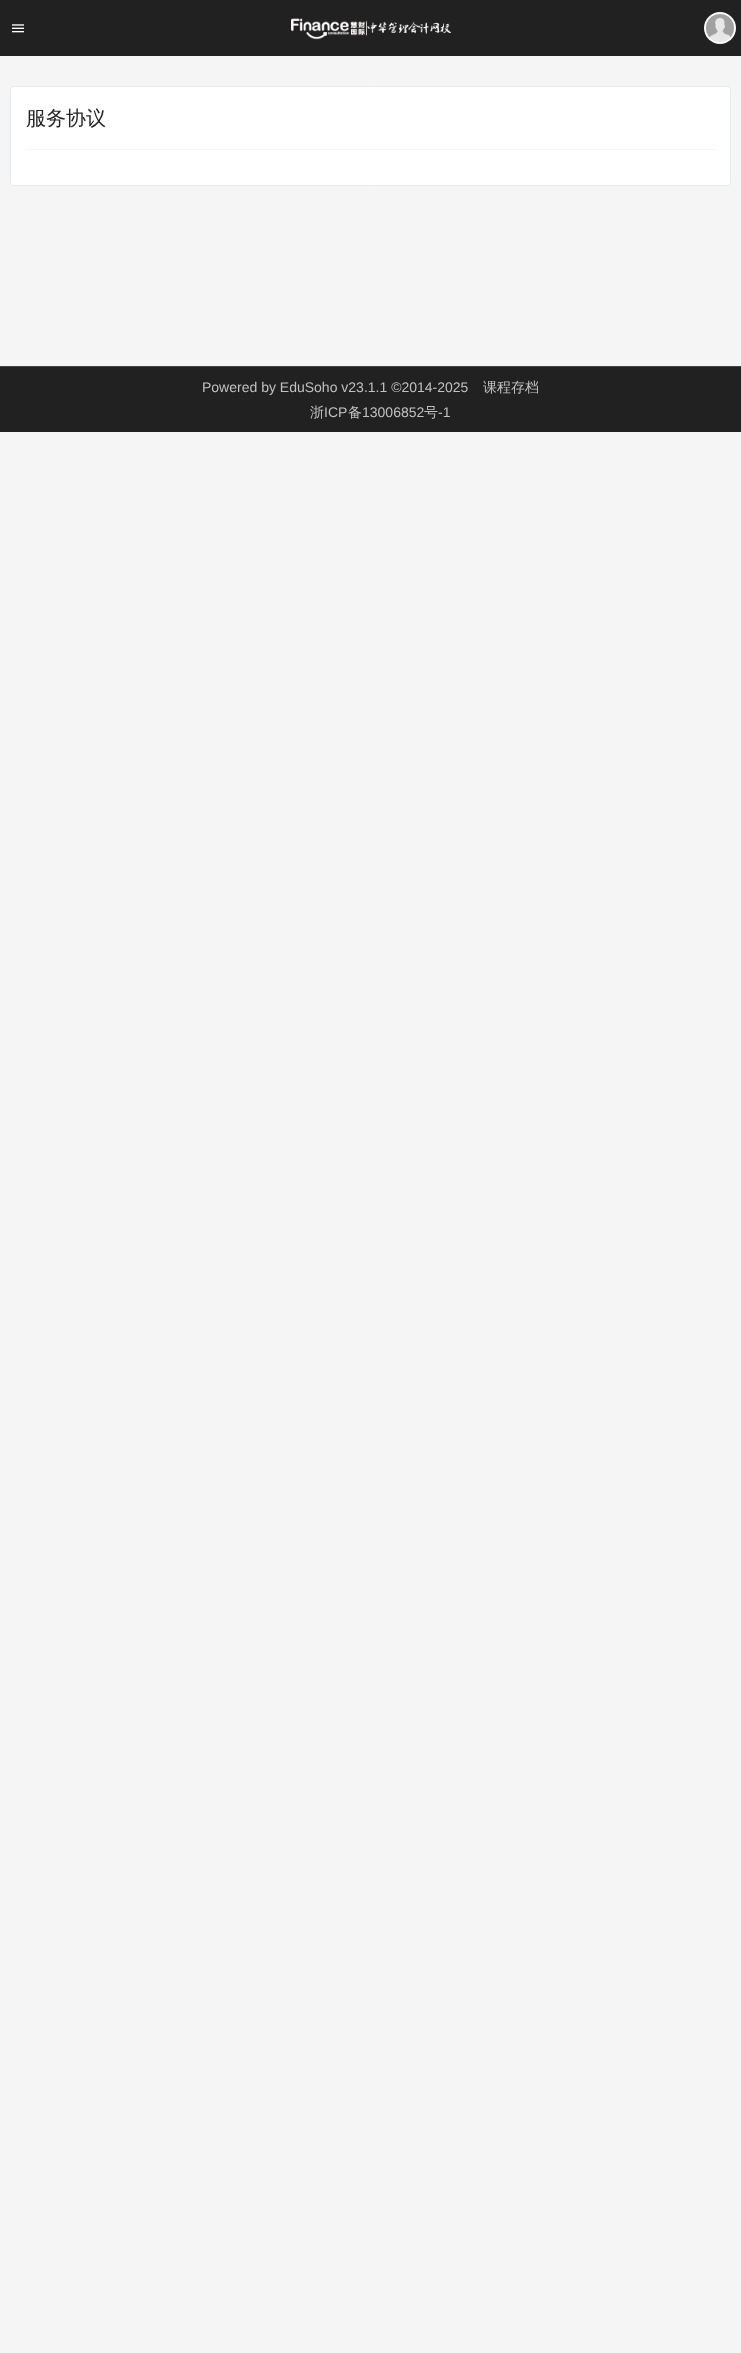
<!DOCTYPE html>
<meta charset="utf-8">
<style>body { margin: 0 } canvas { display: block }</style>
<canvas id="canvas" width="741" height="2353"></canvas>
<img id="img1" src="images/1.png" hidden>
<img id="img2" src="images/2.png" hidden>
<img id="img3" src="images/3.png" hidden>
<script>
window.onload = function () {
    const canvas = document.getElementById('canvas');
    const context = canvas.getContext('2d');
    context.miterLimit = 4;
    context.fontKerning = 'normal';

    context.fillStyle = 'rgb(245, 245, 245)';
    context.fillRect(0, 0, 741, 2353);
    context.fillStyle = 'rgb(33, 33, 33)';
    context.fillRect(0, 0, 741, 56);
    context.drawImage(document.getElementById('img1'), 12, 24, 12, 9);
    context.drawImage(document.getElementById('img2'), 291, 18, 160, 22);
    context.fillStyle = 'rgb(250, 250, 250)';
    context.beginPath();
    context.arc(720, 28, 16, 0, 2 * Math.PI);
    context.fill();
    context.drawImage(document.getElementById('img3'), 706, 14, 28, 28);
    context.fillStyle = 'rgb(255, 255, 255)';
    context.beginPath();
    context.roundRect(10.5, 86.5, 720, 99, 3.5);
    context.fill();
    context.strokeStyle = 'rgb(228, 236, 243)';
    context.stroke();
    context.fillStyle = 'rgb(245, 245, 245)';
    context.fillRect(26, 149, 689, 1);
    context.fillStyle = 'rgb(33, 33, 33)';
    context.fillRect(0, 367, 741, 65);
    context.fillStyle = 'rgb(68, 68, 68)';
    context.fillRect(0, 366, 741, 1);
    context.font = '500 20px WenQuanYi Zen Hei';
    context.fillStyle = 'rgb(38, 38, 38)';
    context.fillText('服务协议', 26, 125);
    context.font = '14px Liberation Sans';
    context.fillStyle = 'rgb(193, 193, 193)';
    context.fillText('Powered by EduSoho v23.1.1 ©2014-2025', 202, 392);
    context.font = '500 14px WenQuanYi Zen Hei';
    context.fillText('课程存档', 483, 392);
    context.fillText('浙', 310, 417);
    context.font = '14px Liberation Sans';
    context.fillText('ICP', 324, 417);
    context.font = '500 14px WenQuanYi Zen Hei';
    context.fillText('备', 348, 417);
    context.font = '14px Liberation Sans';
    context.fillText('13006852', 362, 417);
    context.font = '500 14px WenQuanYi Zen Hei';
    context.fillText('号', 424, 417);
    context.font = '14px Liberation Sans';
    context.fillText('-1', 438, 417);
};
</script>
